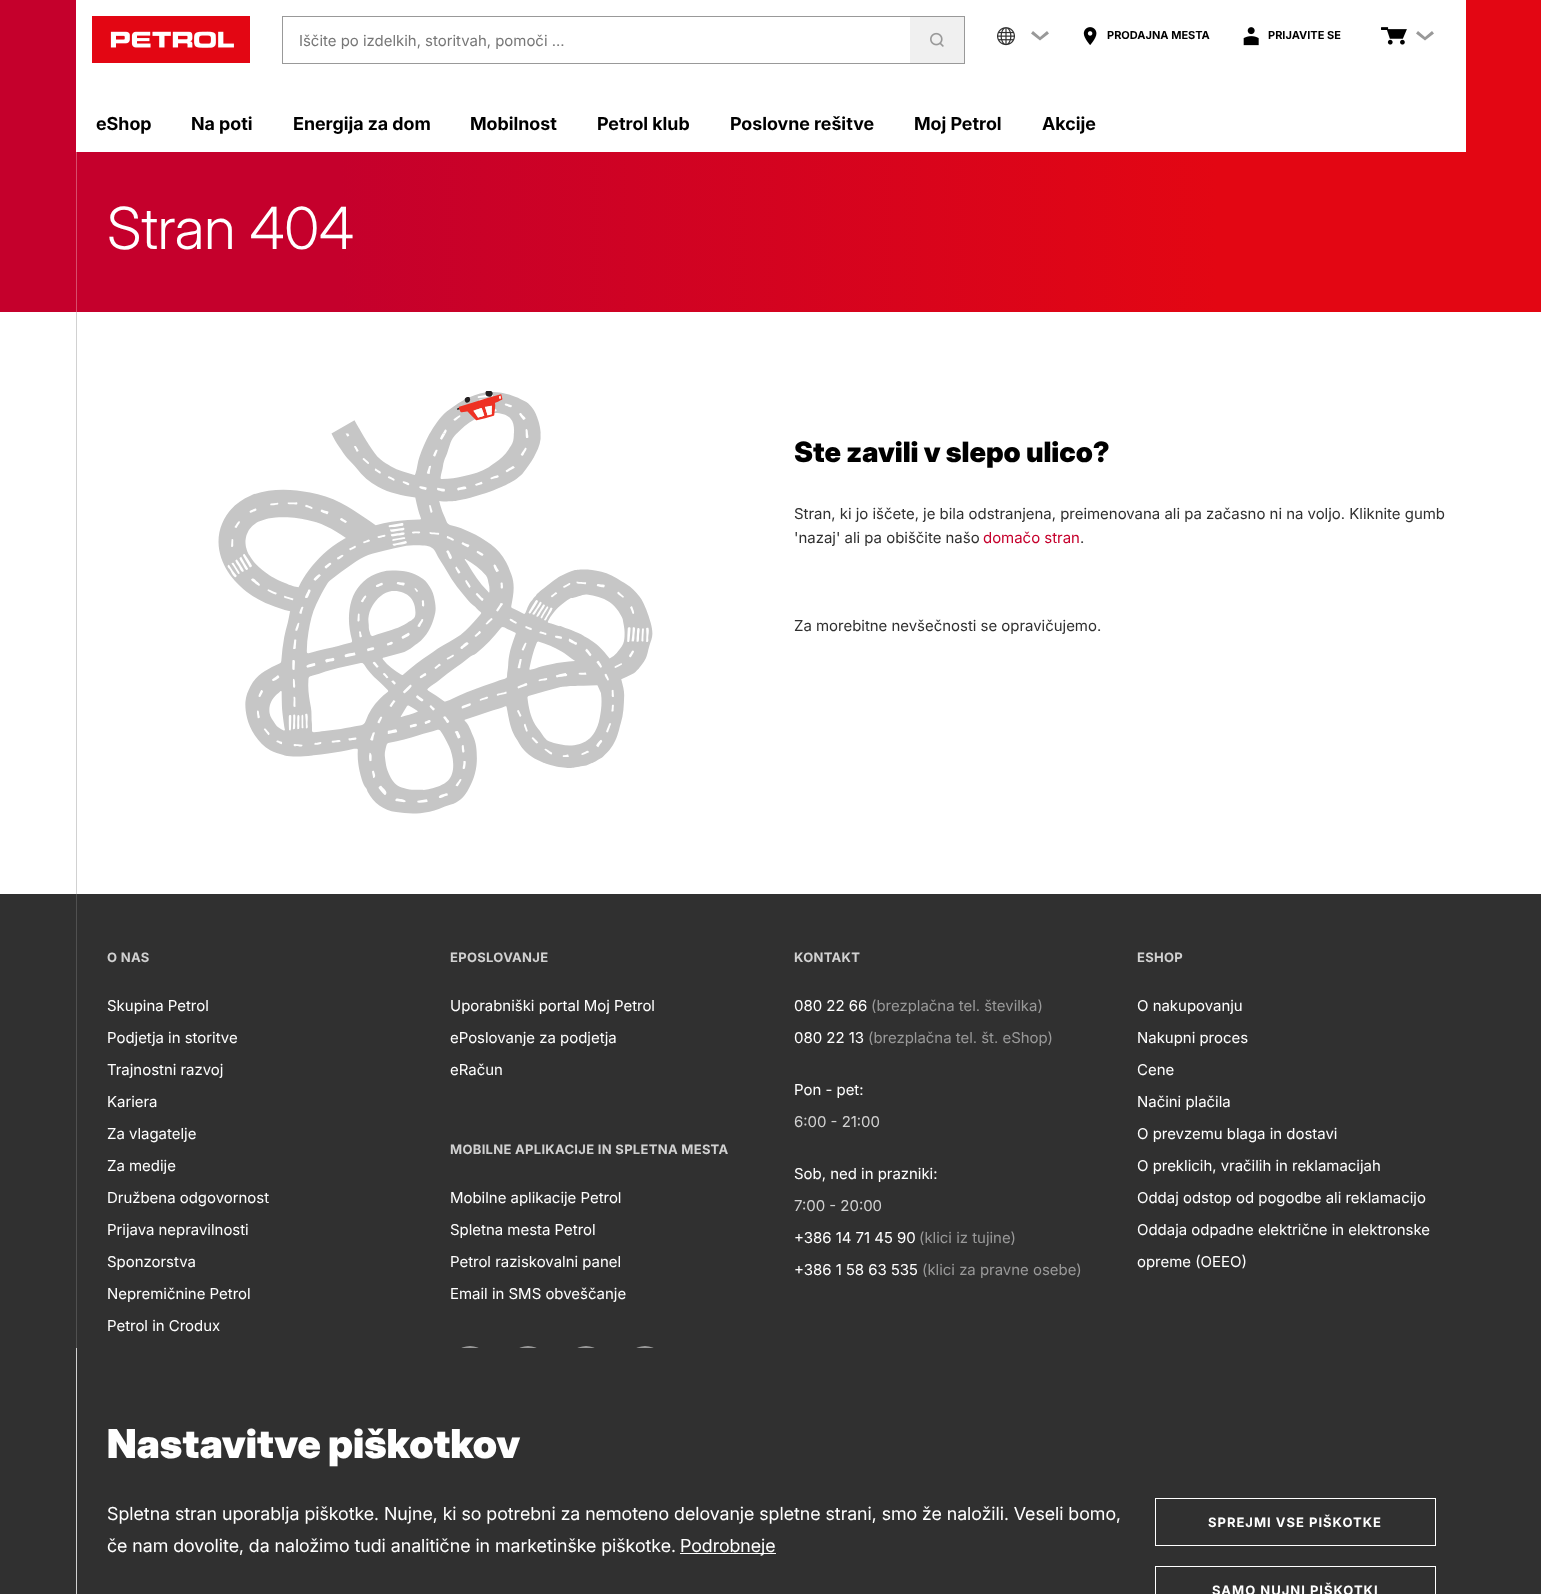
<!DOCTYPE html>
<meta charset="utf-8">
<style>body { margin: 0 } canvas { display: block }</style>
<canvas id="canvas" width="1541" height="1594"></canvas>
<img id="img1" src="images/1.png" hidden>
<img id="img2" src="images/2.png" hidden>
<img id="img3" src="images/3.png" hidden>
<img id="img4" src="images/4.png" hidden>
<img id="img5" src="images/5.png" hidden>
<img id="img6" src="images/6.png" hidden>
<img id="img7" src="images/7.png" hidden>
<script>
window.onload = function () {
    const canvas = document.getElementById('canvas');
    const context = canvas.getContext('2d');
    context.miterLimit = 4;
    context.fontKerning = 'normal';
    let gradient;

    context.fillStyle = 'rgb(255, 255, 255)';
    context.fillRect(0, 0, 1541, 1594);
    gradient = context.createLinearGradient(0, 156, 1541, 156);
    gradient.addColorStop(0.22, 'rgb(197, 0, 44)');
    gradient.addColorStop(0.79, 'rgb(227, 6, 19)');
    context.fillStyle = gradient;
    context.fillRect(0, 0, 1541, 312);
    context.fillStyle = 'rgb(255, 255, 255)';
    context.fillRect(76, 0, 1390, 152);
    context.drawImage(document.getElementById('img1'), 92, 16, 158, 47);
    context.strokeStyle = 'rgb(153, 153, 153)';
    context.strokeRect(282.5, 16.5, 682, 47);
    context.fillStyle = 'rgb(240, 240, 240)';
    context.fillRect(910, 17, 54, 46);
    context.drawImage(document.getElementById('img2'), 930, 32, 14, 15);
    context.drawImage(document.getElementById('img3'), 997, 27, 18, 19);
    context.fillStyle = 'rgb(153, 153, 153)';
    context.beginPath();
    context.moveTo(1047, 31);
    context.lineTo(1040, 37);
    context.lineTo(1033, 31);
    context.lineTo(1031, 33.5);
    context.lineTo(1040, 40.5);
    context.lineTo(1049, 33.5);
    context.closePath();
    context.fill();
    context.drawImage(document.getElementById('img4'), 1083, 27, 14, 18);
    context.drawImage(document.getElementById('img5'), 1243, 27, 16, 19);
    context.drawImage(document.getElementById('img6'), 1381, 27, 26, 18);
    context.beginPath();
    context.moveTo(1432, 31);
    context.lineTo(1425, 37);
    context.lineTo(1418, 31);
    context.lineTo(1416, 33.5);
    context.lineTo(1425, 40.5);
    context.lineTo(1434, 33.5);
    context.closePath();
    context.fill();
    context.fillStyle = 'rgb(214, 77, 107)';
    context.fillRect(76, 152, 1, 160);
    context.fillStyle = 'rgb(209, 209, 209)';
    context.fillRect(76, 312, 1, 582);
    context.drawImage(document.getElementById('img7'), 218, 391, 435, 423);
    context.fillStyle = 'rgb(48, 48, 48)';
    context.fillRect(0, 894, 1541, 454);
    context.fillStyle = 'rgb(80, 80, 80)';
    context.fillRect(76, 894, 1, 454);
    context.fillStyle = 'rgb(153, 153, 153)';
    context.beginPath();
    context.arc(470, 1366, 20, 0, 2 * Math.PI);
    context.fill();
    context.beginPath();
    context.arc(528, 1366, 20, 0, 2 * Math.PI);
    context.fill();
    context.beginPath();
    context.arc(586, 1366, 20, 0, 2 * Math.PI);
    context.fill();
    context.beginPath();
    context.arc(645, 1366, 20, 0, 2 * Math.PI);
    context.fill();
    context.fillStyle = 'rgb(48, 48, 48)';
    context.fillRect(0, 1348, 1541, 246);
    context.fillStyle = 'rgb(209, 209, 209)';
    context.fillRect(76, 1348, 1, 246);
    context.fillStyle = 'rgb(255, 255, 255)';
    context.fillRect(680, 1553, 96, 1);
    context.strokeStyle = 'rgb(255, 255, 255)';
    context.strokeRect(1155.5, 1498.5, 280, 47);
    context.strokeRect(1155.5, 1566.5, 280, 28);
    context.font = '15px Inter';
    context.fillStyle = 'rgb(119, 119, 119)';
    context.fillText('Iščite po izdelkih, storitvah, pomoči …', 299, 46);
    context.font = 'bold 11px Inter';
    context.fillStyle = 'rgb(0, 0, 0)';
    context.fillText('PRODAJNA MESTA', 1107, 39);
    context.fillText('PRIJAVITE SE', 1268, 39);
    context.font = 'bold 18px "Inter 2"';
    context.fillText('eShop', 96, 130);
    context.fillText('Na poti', 191, 130);
    context.fillText('Energija za dom', 293, 130);
    context.fillText('Mobilnost', 470, 130);
    context.fillText('Petrol klub', 597, 130);
    context.fillText('Poslovne rešitve', 730, 130);
    context.fillText('Moj Petrol', 914, 130);
    context.fillText('Akcije', 1042, 130);
    context.font = '300 58px Inter';
    context.fillStyle = 'rgb(255, 255, 255)';
    context.fillText('Stran 404', 107, 249);
    context.font = '900 28px Inter';
    context.fillStyle = 'rgb(0, 0, 0)';
    context.fillText('Ste zavili v slepo ulico?', 794, 462);
    context.font = '15px Inter';
    context.fillStyle = 'rgb(48, 48, 48)';
    context.fillText('Stran, ki jo iščete, je bila odstranjena, preimenovana ali pa začasno ni na voljo. Kliknite gumb', 794, 519);
    context.fillText('\'nazaj\' ali pa obiščite našo', 794, 543);
    context.fillStyle = 'rgb(197, 0, 44)';
    context.fillText('domačo stran', 983, 543);
    context.fillStyle = 'rgb(48, 48, 48)';
    context.fillText('.', 1080, 543);
    context.fillText('Za morebitne nevšečnosti se opravičujemo.', 794, 631);
    context.letterSpacing = '0.3px';
    context.font = 'bold 13px Inter';
    context.fillStyle = 'rgb(209, 209, 209)';
    context.fillText('O NAS', 107, 962);
    context.letterSpacing = '0px';
    context.font = '15px Inter';
    context.fillStyle = 'rgb(255, 255, 255)';
    context.fillText('Skupina Petrol', 107, 1011);
    context.fillText('Podjetja in storitve', 107, 1043);
    context.fillText('Trajnostni razvoj', 107, 1075);
    context.fillText('Kariera', 107, 1107);
    context.fillText('Za vlagatelje', 107, 1139);
    context.fillText('Za medije', 107, 1171);
    context.fillText('Družbena odgovornost', 107, 1203);
    context.fillText('Prijava nepravilnosti', 107, 1235);
    context.fillText('Sponzorstva', 107, 1267);
    context.fillText('Nepremičnine Petrol', 107, 1299);
    context.fillText('Petrol in Crodux', 107, 1331);
    context.letterSpacing = '0.3px';
    context.font = 'bold 13px Inter';
    context.fillStyle = 'rgb(209, 209, 209)';
    context.fillText('EPOSLOVANJE', 450, 962);
    context.letterSpacing = '0px';
    context.font = '15px Inter';
    context.fillStyle = 'rgb(255, 255, 255)';
    context.fillText('Uporabniški portal Moj Petrol', 450, 1011);
    context.fillText('ePoslovanje za podjetja', 450, 1043);
    context.fillText('eRačun', 450, 1075);
    context.letterSpacing = '0.3px';
    context.font = 'bold 13px Inter';
    context.fillStyle = 'rgb(209, 209, 209)';
    context.fillText('MOBILNE APLIKACIJE IN SPLETNA MESTA', 450, 1154);
    context.letterSpacing = '0px';
    context.font = '15px Inter';
    context.fillStyle = 'rgb(255, 255, 255)';
    context.fillText('Mobilne aplikacije Petrol', 450, 1203);
    context.fillText('Spletna mesta Petrol', 450, 1235);
    context.fillText('Petrol raziskovalni panel', 450, 1267);
    context.fillText('Email in SMS obveščanje', 450, 1299);
    context.letterSpacing = '0.3px';
    context.font = 'bold 13px Inter';
    context.fillStyle = 'rgb(209, 209, 209)';
    context.fillText('KONTAKT', 794, 962);
    context.letterSpacing = '0px';
    context.font = '15px Inter';
    context.fillStyle = 'rgb(255, 255, 255)';
    context.fillText('080 22 66', 794, 1011);
    context.fillStyle = 'rgb(153, 153, 153)';
    context.fillText('(brezplačna tel. številka)', 871, 1011);
    context.fillStyle = 'rgb(255, 255, 255)';
    context.fillText('080 22 13', 794, 1043);
    context.fillStyle = 'rgb(153, 153, 153)';
    context.fillText('(brezplačna tel. št. eShop)', 868, 1043);
    context.fillStyle = 'rgb(255, 255, 255)';
    context.fillText('Pon - pet:', 794, 1095);
    context.fillStyle = 'rgb(209, 209, 209)';
    context.fillText('6:00 - 21:00', 794, 1127);
    context.fillStyle = 'rgb(255, 255, 255)';
    context.fillText('Sob, ned in prazniki:', 794, 1179);
    context.fillStyle = 'rgb(209, 209, 209)';
    context.fillText('7:00 - 20:00', 794, 1211);
    context.fillStyle = 'rgb(255, 255, 255)';
    context.fillText('+386 14 71 45 90', 794, 1243);
    context.fillStyle = 'rgb(153, 153, 153)';
    context.fillText('(klici iz tujine)', 919, 1243);
    context.fillStyle = 'rgb(255, 255, 255)';
    context.fillText('+386 1 58 63 535', 794, 1275);
    context.fillStyle = 'rgb(153, 153, 153)';
    context.fillText('(klici za pravne osebe)', 922, 1275);
    context.letterSpacing = '0.3px';
    context.font = 'bold 13px Inter';
    context.fillStyle = 'rgb(209, 209, 209)';
    context.fillText('ESHOP', 1137, 962);
    context.letterSpacing = '0px';
    context.font = '15px Inter';
    context.fillStyle = 'rgb(255, 255, 255)';
    context.fillText('O nakupovanju', 1137, 1011);
    context.fillText('Nakupni proces', 1137, 1043);
    context.fillText('Cene', 1137, 1075);
    context.fillText('Načini plačila', 1137, 1107);
    context.fillText('O prevzemu blaga in dostavi', 1137, 1139);
    context.fillText('O preklicih, vračilih in reklamacijah', 1137, 1171);
    context.fillText('Oddaj odstop od pogodbe ali reklamacijo', 1137, 1203);
    context.fillText('Oddaja odpadne električne in elektronske', 1137, 1235);
    context.fillText('opreme (OEEO)', 1137, 1267);
    context.font = '900 40px "Inter 2"';
    context.fillText('Nastavitve piškotkov', 107, 1458);
    context.font = '18px "Inter 2"';
    context.fillText('Spletna stran uporablja piškotke. Nujne, ki so potrebni za nemoteno delovanje spletne strani, smo že naložili. Veseli bomo,', 107, 1520);
    context.fillText('če nam dovolite, da naložimo tudi analitične in marketinške piškotke.', 107, 1552);
    context.fillText('Podrobneje', 680, 1552);
    context.letterSpacing = '1px';
    context.font = 'bold 13px Inter';
    context.fillText('SPREJMI VSE PIŠKOTKE', 1208, 1527);
    context.fillText('SAMO NUJNI PIŠKOTKI', 1212, 1595);
};
</script>
